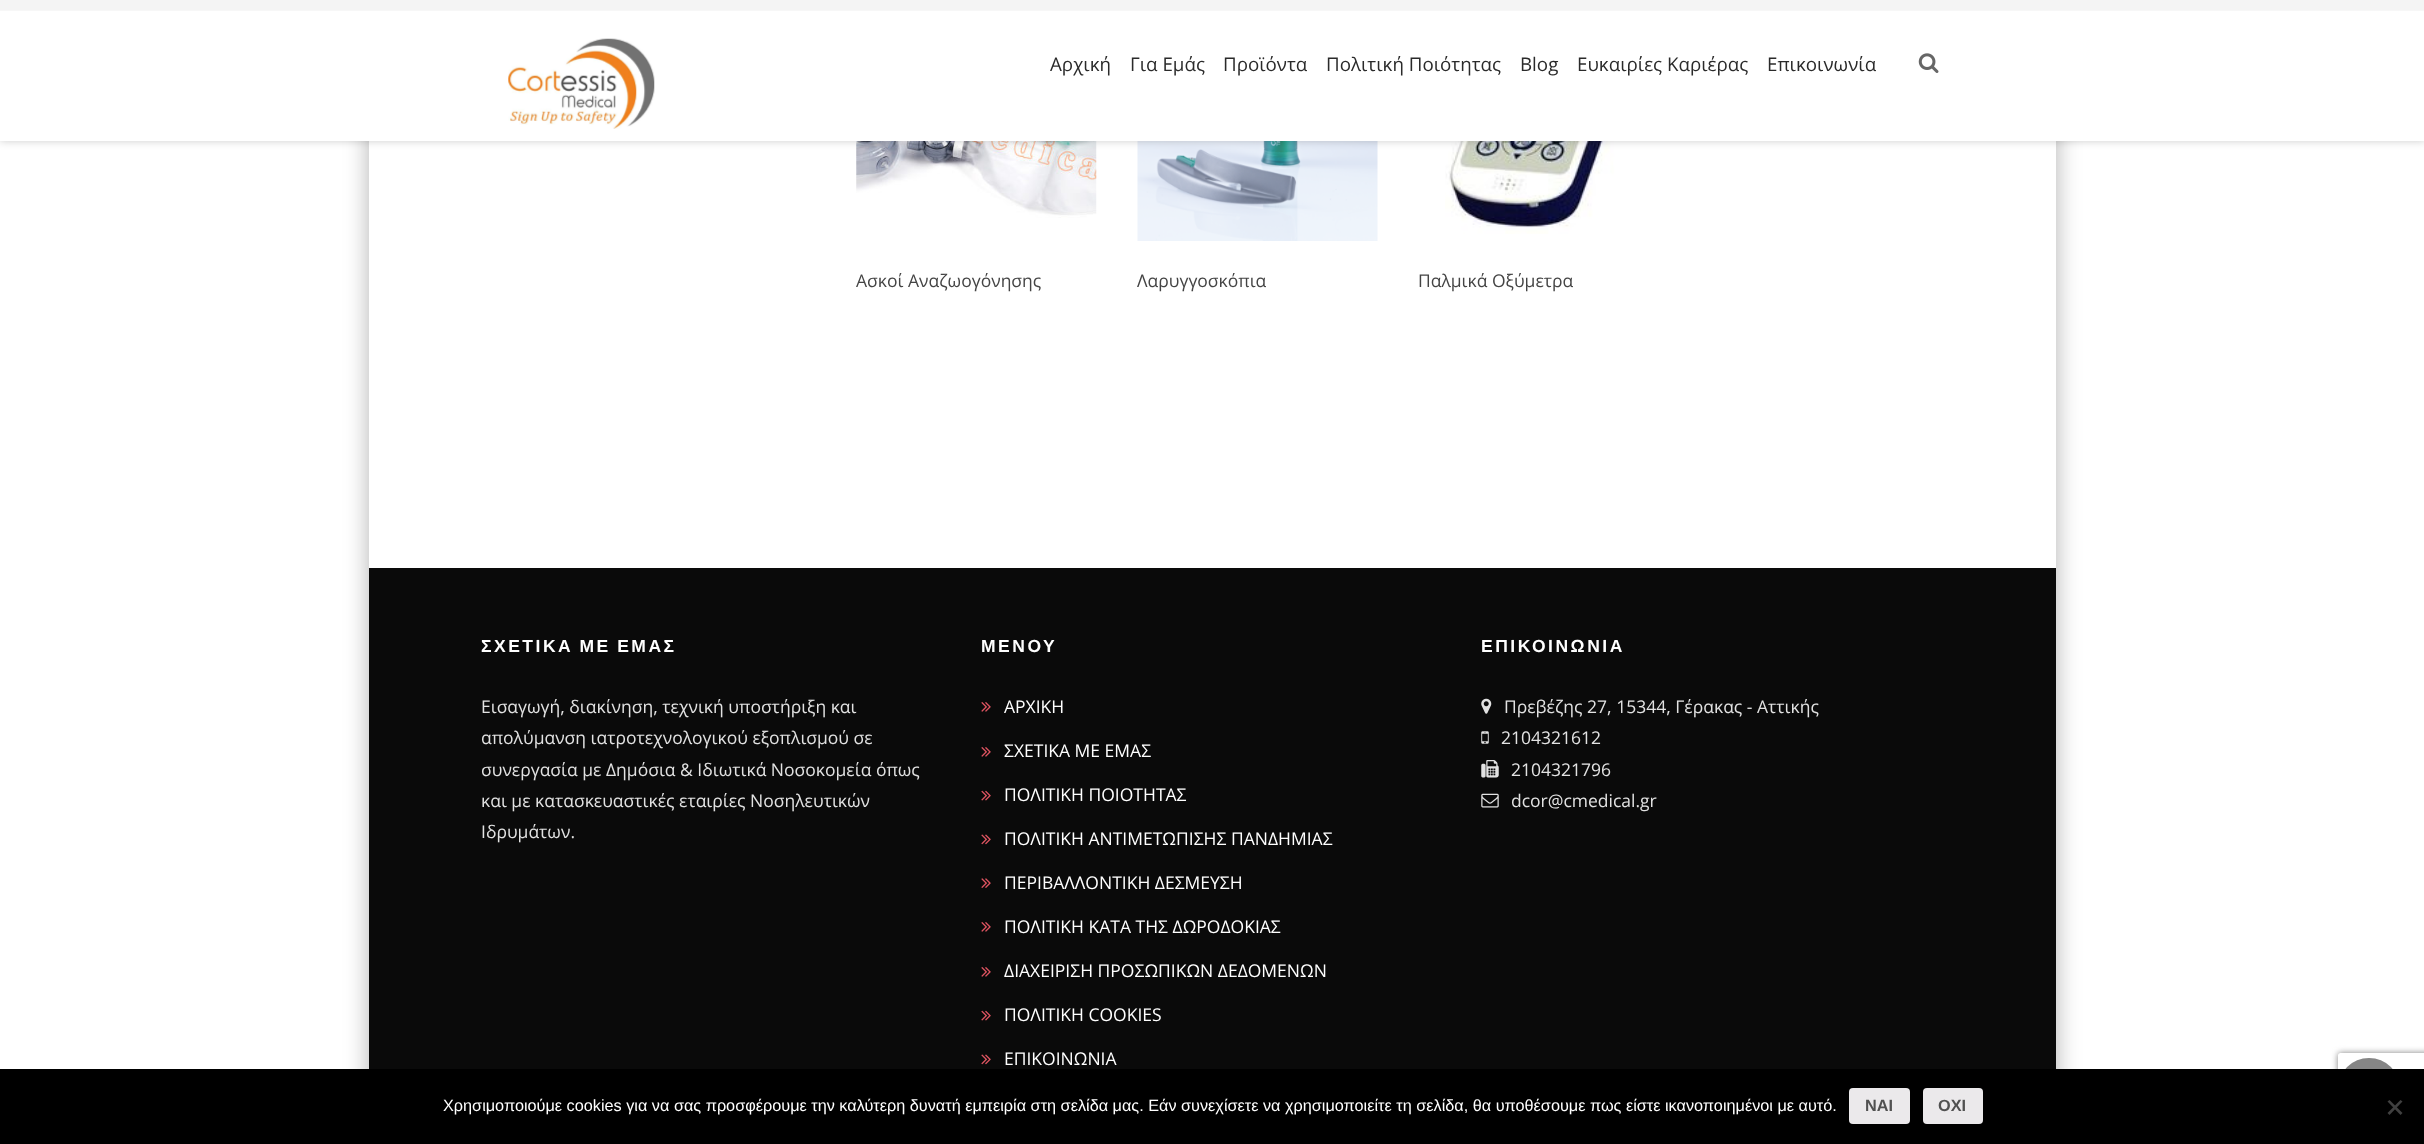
<!DOCTYPE html>
<meta charset="utf-8">
<style>body { margin: 0 } canvas { display: block }</style>
<canvas id="canvas" width="2424" height="1144"></canvas>
<img id="img1" src="images/3.png" hidden>
<img id="img2" src="images/4.png" hidden>
<img id="img3" src="images/5.png" hidden>
<img id="img4" src="images/1.png" hidden>
<img id="img5" src="images/2.png" hidden>
<img id="img6" src="images/6.png" hidden>
<img id="img7" src="images/7.png" hidden>
<img id="img8" src="images/8.png" hidden>
<img id="img9" src="images/9.png" hidden>
<img id="img10" src="images/10.png" hidden>
<img id="img11" src="images/11.png" hidden>
<img id="img12" src="images/12.png" hidden>
<img id="img13" src="images/13.png" hidden>
<script>
window.onload = function () {
    const canvas = document.getElementById('canvas');
    const context = canvas.getContext('2d');
    context.miterLimit = 4;
    context.fontKerning = 'normal';

    context.fillStyle = 'rgb(255, 255, 255)';
    context.fillRect(0, 0, 2424, 1144);
    context.save();
    context.beginPath();
    context.moveTo(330, 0);
    context.lineTo(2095, 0);
    context.lineTo(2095, 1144);
    context.lineTo(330, 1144);
    context.closePath();
    context.moveTo(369, -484);
    context.lineTo(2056, -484);
    context.lineTo(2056, 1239);
    context.lineTo(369, 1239);
    context.closePath();
    context.clip('evenodd');
    context.fillStyle = 'rgba(0, 0, 0, 0.3)';
    context.filter = 'blur(12.5px)';
    context.beginPath();
    context.rect(369, -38, 1687, 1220);
    context.fill();
    context.filter = 'none';
    context.restore();
    context.drawImage(document.getElementById('img1'), 856, 141, 241, 77);
    context.drawImage(document.getElementById('img2'), 1137, 141, 241, 100);
    context.drawImage(document.getElementById('img3'), 1445, 141, 196, 93);
    context.fillStyle = 'rgba(0, 0, 0, 0.2)';
    context.filter = 'blur(4.5px)';
    context.beginPath();
    context.rect(0, 0, 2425, 141);
    context.fill();
    context.filter = 'none';
    context.fillStyle = 'rgb(255, 255, 255)';
    context.fillRect(0, 11, 2424, 130);
    context.fillStyle = 'rgb(244, 244, 244)';
    context.fillRect(0, 0, 2424, 10);
    context.fillStyle = 'rgb(247, 247, 247)';
    context.fillRect(0, 10, 2424, 1);
    context.drawImage(document.getElementById('img4'), 508, 38, 147, 91);
    context.drawImage(document.getElementById('img5'), 1918, 53, 21, 20);
    context.fillStyle = 'rgb(10, 10, 10)';
    context.fillRect(369, 568, 1687, 501);
    context.drawImage(document.getElementById('img6'), 981, 702, 10, 10);
    context.drawImage(document.getElementById('img6'), 981, 747, 10, 10);
    context.drawImage(document.getElementById('img7'), 981, 790, 10, 11);
    context.drawImage(document.getElementById('img8'), 981, 834, 10, 11);
    context.drawImage(document.getElementById('img9'), 981, 878, 10, 10);
    context.drawImage(document.getElementById('img6'), 981, 922, 10, 10);
    context.drawImage(document.getElementById('img6'), 981, 967, 10, 10);
    context.drawImage(document.getElementById('img7'), 981, 1010, 10, 11);
    context.drawImage(document.getElementById('img8'), 981, 1054, 10, 11);
    context.drawImage(document.getElementById('img10'), 1481, 698, 11, 16);
    context.drawImage(document.getElementById('img11'), 1481, 731, 8, 13);
    context.drawImage(document.getElementById('img12'), 1481, 760, 18, 18);
    context.drawImage(document.getElementById('img13'), 1481, 793, 18, 15);
    context.save();
    context.beginPath();
    context.moveTo(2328, 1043);
    context.lineTo(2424, 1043);
    context.lineTo(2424, 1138);
    context.lineTo(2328, 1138);
    context.closePath();
    context.moveTo(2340.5, 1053);
    context.lineTo(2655.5, 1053);
    context.bezierCurveTo(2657, 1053, 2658, 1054, 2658, 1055.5);
    context.lineTo(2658, 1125.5);
    context.bezierCurveTo(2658, 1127, 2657, 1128, 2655.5, 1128);
    context.lineTo(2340.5, 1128);
    context.bezierCurveTo(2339, 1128, 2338, 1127, 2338, 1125.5);
    context.lineTo(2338, 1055.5);
    context.bezierCurveTo(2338, 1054, 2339, 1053, 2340.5, 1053);
    context.closePath();
    context.clip('evenodd');
    context.fillStyle = 'rgb(128, 128, 128)';
    context.filter = 'blur(3px)';
    context.beginPath();
    context.roundRect(2338, 1053, 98, 75, 2.5);
    context.fill();
    context.filter = 'none';
    context.restore();
    context.fillStyle = 'rgb(133, 133, 133)';
    context.beginPath();
    context.arc(2369, 1089, 31, 0, 2 * Math.PI);
    context.fill();
    context.fillStyle = 'rgb(0, 0, 0)';
    context.fillRect(0, 1069, 2424, 75);
    context.fillStyle = 'rgb(235, 233, 235)';
    context.beginPath();
    context.roundRect(1849, 1088, 61, 36, 4);
    context.fill();
    context.beginPath();
    context.roundRect(1923, 1088, 60, 36, 4);
    context.fill();
    context.fillStyle = 'rgb(64, 64, 64)';
    context.beginPath();
    context.moveTo(2400.5, 1100);
    context.lineTo(2402.5, 1101.5);
    context.lineTo(2389.5, 1115);
    context.lineTo(2387.5, 1113);
    context.closePath();
    context.fill();
    context.beginPath();
    context.moveTo(2387.5, 1101.5);
    context.lineTo(2389.5, 1100);
    context.lineTo(2402.5, 1113);
    context.lineTo(2400.5, 1115);
    context.closePath();
    context.fill();
    context.font = '18.75px Open Sans';
    context.fillStyle = 'rgb(42, 42, 42)';
    context.fillText('Αρχική', 1050, 71);
    context.fillText('Για Εμάς', 1130, 71);
    context.fillText('Προϊόντα', 1223, 71);
    context.fillText('Πολιτική Ποιότητας', 1326, 71);
    context.fillText('Blog', 1520, 71);
    context.fillText('Ευκαιρίες Καριέρας', 1577, 71);
    context.fillText('Επικοινωνία', 1767, 71);
    context.font = '17.5px Open Sans';
    context.fillStyle = 'rgb(68, 68, 68)';
    context.fillText('Ασκοί Αναζωογόνησης', 856, 287);
    context.fillText('Λαρυγγοσκόπια', 1137, 287);
    context.fillText('Παλμικά Οξύμετρα', 1418, 287);
    context.letterSpacing = '2.5px';
    context.wordSpacing = '-1px';
    context.font = 'bold 17.5px Liberation Sans';
    context.fillStyle = 'rgb(255, 255, 255)';
    context.fillText('ΣΧΕΤΙΚΑ ΜΕ ΕΜΑΣ', 481, 652);
    context.letterSpacing = '0px';
    context.wordSpacing = '0px';
    context.font = '17.5px Open Sans';
    context.fillStyle = 'rgb(226, 226, 226)';
    context.fillText('Εισαγωγή, διακίνηση, τεχνική υποστήριξη και', 481, 713);
    context.fillText('απολύμανση ιατροτεχνολογικού εξοπλισμού σε', 481, 744);
    context.fillText('συνεργασία με Δημόσια & Ιδιωτικά Νοσοκομεία όπως', 481, 776);
    context.fillText('και με κατασκευαστικές εταιρίες Νοσηλευτικών', 481, 807);
    context.fillText('Ιδρυμάτων.', 481, 838);
    context.letterSpacing = '2.5px';
    context.font = 'bold 17.5px Liberation Sans';
    context.fillStyle = 'rgb(255, 255, 255)';
    context.fillText('ΜΕΝΟΥ', 981, 652);
    context.letterSpacing = '0px';
    context.font = '17.5px Open Sans';
    context.fillText('ΑΡΧΙΚΗ', 1004, 713);
    context.fillText('ΣΧΕΤΙΚΑ ΜΕ ΕΜΑΣ', 1004, 757);
    context.fillText('ΠΟΛΙΤΙΚΗ ΠΟΙΟΤΗΤΑΣ', 1004, 801);
    context.fillText('ΠΟΛΙΤΙΚΗ ΑΝΤΙΜΕΤΩΠΙΣΗΣ ΠΑΝΔΗΜΙΑΣ', 1004, 845);
    context.fillText('ΠΕΡΙΒΑΛΛΟΝΤΙΚΗ ΔΕΣΜΕΥΣΗ', 1004, 889);
    context.fillText('ΠΟΛΙΤΙΚΗ ΚΑΤΑ ΤΗΣ ΔΩΡΟΔΟΚΙΑΣ', 1004, 933);
    context.fillText('ΔΙΑΧΕΙΡΙΣΗ ΠΡΟΣΩΠΙΚΩΝ ΔΕΔΟΜΕΝΩΝ', 1004, 977);
    context.fillText('ΠΟΛΙΤΙΚΗ COOKIES', 1004, 1021);
    context.fillText('ΕΠΙΚΟΙΝΩΝΙΑ', 1004, 1065);
    context.letterSpacing = '2.5px';
    context.font = 'bold 17.5px Liberation Sans';
    context.fillText('ΕΠΙΚΟΙΝΩΝΙΑ', 1481, 652);
    context.letterSpacing = '0px';
    context.font = '17.5px Open Sans';
    context.fillStyle = 'rgb(226, 226, 226)';
    context.fillText('Πρεβέζης 27, 15344, Γέρακας - Αττικής', 1504, 713);
    context.fillText('2104321612', 1501, 744);
    context.fillText('2104321796', 1511, 776);
    context.fillText('dcor@cmedical.gr', 1511, 807);
    context.font = '16.25px Liberation Sans';
    context.fillStyle = 'rgb(255, 255, 255)';
    context.fillText('Χρησιμοποιούμε cookies για να σας προσφέρουμε την καλύτερη δυνατή εμπειρία στη σελίδα μας. Εάν συνεχίσετε να χρησιμοποιείτε τη σελίδα, θα υποθέσουμε πως είστε ικανοποιημένοι με αυτό.', 443, 1111);
    context.font = 'bold 16.25px Liberation Sans';
    context.fillStyle = 'rgb(81, 81, 81)';
    context.fillText('ΝΑΙ', 1865, 1111);
    context.fillText('ΟΧΙ', 1938, 1111);
};
</script>
